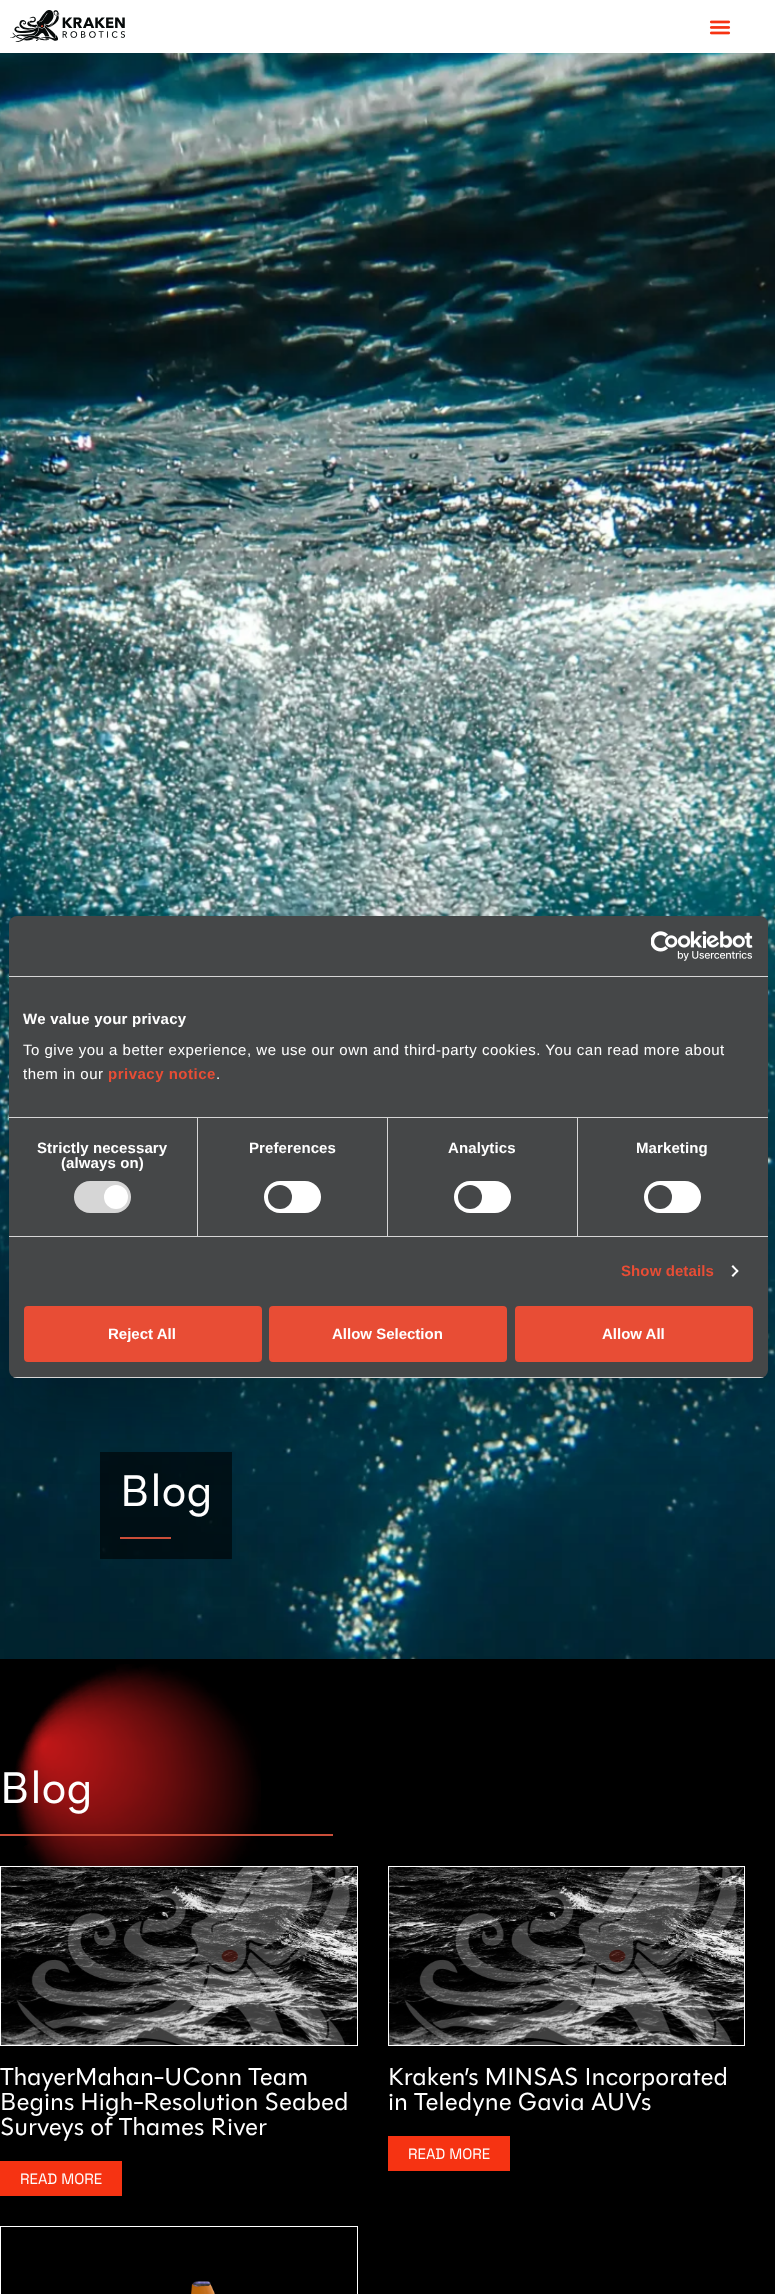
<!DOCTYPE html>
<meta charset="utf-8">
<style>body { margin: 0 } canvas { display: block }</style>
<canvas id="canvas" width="775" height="2294"></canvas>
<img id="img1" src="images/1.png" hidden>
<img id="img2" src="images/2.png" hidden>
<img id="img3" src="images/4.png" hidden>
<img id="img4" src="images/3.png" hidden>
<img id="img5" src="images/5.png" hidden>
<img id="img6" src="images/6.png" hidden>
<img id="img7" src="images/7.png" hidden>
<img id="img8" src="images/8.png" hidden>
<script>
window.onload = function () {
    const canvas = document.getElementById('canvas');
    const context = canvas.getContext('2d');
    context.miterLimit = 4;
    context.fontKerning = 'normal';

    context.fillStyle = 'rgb(0, 0, 0)';
    context.fillRect(0, 0, 775, 2294);
    context.fillStyle = 'rgb(255, 255, 255)';
    context.fillRect(0, 0, 775, 53);
    context.drawImage(document.getElementById('img1'), 10, 10, 115, 32);
    context.drawImage(document.getElementById('img2'), 709, 20, 22, 15);
    context.drawImage(document.getElementById('img3'), 0, 53, 775, 1606);
    context.fillStyle = 'rgba(0, 0, 0, 0.58)';
    context.fillRect(100, 1452, 132, 107);
    context.fillStyle = 'rgba(0, 0, 0, 0.3)';
    context.filter = 'blur(34px)';
    context.beginPath();
    context.roundRect(9, 948, 759, 462, 8);
    context.fill();
    context.filter = 'none';
    context.fillStyle = 'rgb(69, 71, 72)';
    context.beginPath();
    context.roundRect(9, 916, 759, 462, 8);
    context.fill();
    context.fillStyle = 'rgb(214, 214, 214)';
    context.fillRect(9, 976, 759, 1);
    context.drawImage(document.getElementById('img4'), 651, 931, 102, 30);
    context.fillRect(9, 1117, 759, 1);
    context.fillRect(9, 1236, 759, 1);
    context.fillRect(197, 1118, 1, 118);
    context.beginPath();
    context.roundRect(74, 1181, 57, 32, 16);
    context.fill();
    context.fillStyle = 'rgb(255, 255, 255)';
    context.beginPath();
    context.arc(116, 1197, 12, 0, 2 * Math.PI);
    context.fill();
    context.fillStyle = 'rgb(214, 214, 214)';
    context.fillRect(387, 1118, 1, 118);
    context.fillStyle = 'rgb(255, 255, 255)';
    context.beginPath();
    context.roundRect(264, 1181, 57, 32, 16);
    context.fill();
    context.fillStyle = 'rgb(69, 71, 72)';
    context.beginPath();
    context.arc(280, 1197, 12, 0, 2 * Math.PI);
    context.fill();
    context.fillStyle = 'rgb(214, 214, 214)';
    context.fillRect(577, 1118, 1, 118);
    context.fillStyle = 'rgb(255, 255, 255)';
    context.beginPath();
    context.roundRect(454, 1181, 57, 32, 16);
    context.fill();
    context.fillStyle = 'rgb(69, 71, 72)';
    context.beginPath();
    context.arc(470, 1197, 12, 0, 2 * Math.PI);
    context.fill();
    context.fillStyle = 'rgb(255, 255, 255)';
    context.beginPath();
    context.roundRect(644, 1181, 57, 32, 16);
    context.fill();
    context.fillStyle = 'rgb(69, 71, 72)';
    context.beginPath();
    context.arc(660, 1197, 12, 0, 2 * Math.PI);
    context.fill();
    context.fillStyle = 'rgb(255, 255, 255)';
    context.beginPath();
    context.moveTo(733, 1265);
    context.lineTo(738.5, 1271);
    context.lineTo(737.5, 1272.5);
    context.lineTo(731.5, 1266.5);
    context.closePath();
    context.fill();
    context.beginPath();
    context.moveTo(737.5, 1269.5);
    context.lineTo(738.5, 1271);
    context.lineTo(733, 1277);
    context.lineTo(731.5, 1275.5);
    context.closePath();
    context.fill();
    context.save();
    context.beginPath();
    context.roundRect(9, 916, 759, 462, 8);
    context.clip();
    context.fillStyle = 'rgb(214, 214, 214)';
    context.fillRect(9, 1377, 759, 1);
    context.restore();
    context.fillStyle = 'rgb(232, 77, 53)';
    context.beginPath();
    context.roundRect(25, 1307, 236, 54, 3);
    context.fill();
    context.strokeStyle = 'rgb(232, 77, 53)';
    context.lineWidth = 2;
    context.stroke();
    context.beginPath();
    context.roundRect(270, 1307, 236, 54, 3);
    context.fill();
    context.stroke();
    context.beginPath();
    context.roundRect(516, 1307, 236, 54, 3);
    context.fill();
    context.stroke();
    context.fillStyle = 'rgb(202, 78, 57)';
    context.fillRect(120, 1537, 51, 2);
    context.drawImage(document.getElementById('img5'), 15, 1664, 246, 202);
    context.fillRect(0, 1834, 333, 2);
    context.strokeStyle = 'rgb(255, 255, 255)';
    context.lineWidth = 1;
    context.strokeRect(0.5, 1866.5, 357, 179);
    context.drawImage(document.getElementById('img6'), 1, 1867, 356, 178);
    context.fillStyle = 'rgb(246, 51, 18)';
    context.fillRect(0, 2161, 122, 35);
    context.strokeRect(388.5, 1866.5, 356, 179);
    context.drawImage(document.getElementById('img7'), 389, 1867, 355, 178);
    context.fillRect(388, 2136, 122, 35);
    context.strokeRect(0.5, 2226.5, 357, 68);
    context.drawImage(document.getElementById('img8'), 191, 2281, 24, 13);
    context.letterSpacing = '0.25px';
    context.font = 'bold 15px Liberation Sans';
    context.fillStyle = 'rgb(255, 255, 255)';
    context.fillText('We value your privacy', 23, 1024);
    context.letterSpacing = '0.5px';
    context.font = '15px Liberation Sans';
    context.fillText('To give you a better experience, we use our own and third-party cookies. You can read more about', 23, 1055);
    context.fillText('them in our', 23, 1079);
    context.font = 'bold 15px Liberation Sans';
    context.fillStyle = 'rgb(232, 77, 53)';
    context.fillText('privacy notice', 108, 1079);
    context.font = '15px Liberation Sans';
    context.fillStyle = 'rgb(255, 255, 255)';
    context.fillText('.', 216, 1079);
    context.letterSpacing = '0.1px';
    context.font = 'bold 15px Liberation Sans';
    context.fillText('Strictly necessary', 37, 1153);
    context.fillText('(always on)', 61, 1168);
    context.fillText('Preferences', 249, 1153);
    context.fillText('Analytics', 448, 1153);
    context.fillText('Marketing', 636, 1153);
    context.fillStyle = 'rgb(232, 77, 53)';
    context.fillText('Show details', 621, 1276);
    context.letterSpacing = '0px';
    context.fillStyle = 'rgb(255, 255, 255)';
    context.fillText('Reject All', 108, 1339);
    context.fillText('Allow Selection', 332, 1339);
    context.fillText('Allow All', 602, 1339);
    context.font = '45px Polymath';
    context.fillText('Blog', 120, 1506);
    context.fillText('Blog', 0, 1803);
    context.font = '25px Polymath';
    context.fillText('ThayerMahan-UConn Team', 0, 2085);
    context.fillText('Begins High-Resolution Seabed', 0, 2110);
    context.fillText('Surveys of Thames River', 0, 2135);
    context.font = '15px Space Grotesk';
    context.fillText('READ MORE', 20, 2184);
    context.font = '25px Polymath';
    context.fillText('Kraken’s MINSAS Incorporated', 388, 2085);
    context.fillText('in Teledyne Gavia AUVs', 388, 2110);
    context.font = '15px Space Grotesk';
    context.fillText('READ MORE', 408, 2159);
};
</script>
